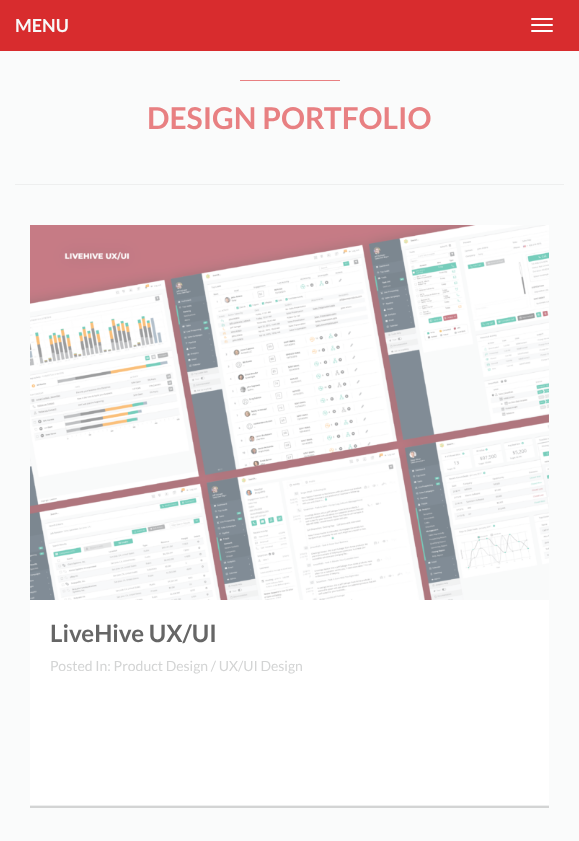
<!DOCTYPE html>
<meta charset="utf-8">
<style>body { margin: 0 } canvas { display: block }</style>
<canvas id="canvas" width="579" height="841"></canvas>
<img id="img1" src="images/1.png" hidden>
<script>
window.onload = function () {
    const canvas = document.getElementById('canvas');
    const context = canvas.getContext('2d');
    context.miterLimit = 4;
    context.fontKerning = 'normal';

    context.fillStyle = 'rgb(250, 251, 251)';
    context.fillRect(0, 0, 579, 841);
    context.fillStyle = 'rgb(216, 44, 46)';
    context.fillRect(0, 0, 579, 51);
    context.fillStyle = 'rgb(255, 255, 255)';
    context.beginPath();
    context.roundRect(531, 18, 22, 2, 1);
    context.fill();
    context.beginPath();
    context.roundRect(531, 24, 22, 2, 1);
    context.fill();
    context.beginPath();
    context.roundRect(531, 30, 22, 2, 1);
    context.fill();
    context.fillStyle = 'rgb(232, 128, 130)';
    context.fillRect(240, 80, 100, 1);
    context.fillStyle = 'rgb(238, 239, 239)';
    context.fillRect(15, 184, 549, 1);
    context.fillStyle = 'rgb(255, 255, 255)';
    context.fillRect(30, 414, 519, 391);
    context.fillStyle = 'rgb(211, 212, 212)';
    context.fillRect(30, 806, 519, 2);
    context.drawImage(document.getElementById('img1'), 30, 225, 519, 375);
    context.fillStyle = 'rgb(238, 239, 239)';
    context.fillRect(30, 805, 519, 1);
    context.font = 'bold 18px Lato';
    context.fillStyle = 'rgb(247, 248, 248)';
    context.fillText('MENU', 15, 32);
    context.font = 'bold 30px Lato';
    context.fillStyle = 'rgb(232, 128, 130)';
    context.fillText('DESIGN PORTFOLIO', 147, 129);
    context.font = 'bold 24px Lato';
    context.fillStyle = 'rgb(102, 102, 102)';
    context.fillText('LiveHive UX/UI', 50, 642);
    context.font = '14px Lato';
    context.fillStyle = 'rgb(211, 212, 212)';
    context.fillText('Posted In: Product Design / UX/UI Design', 50, 671);
};
</script>
